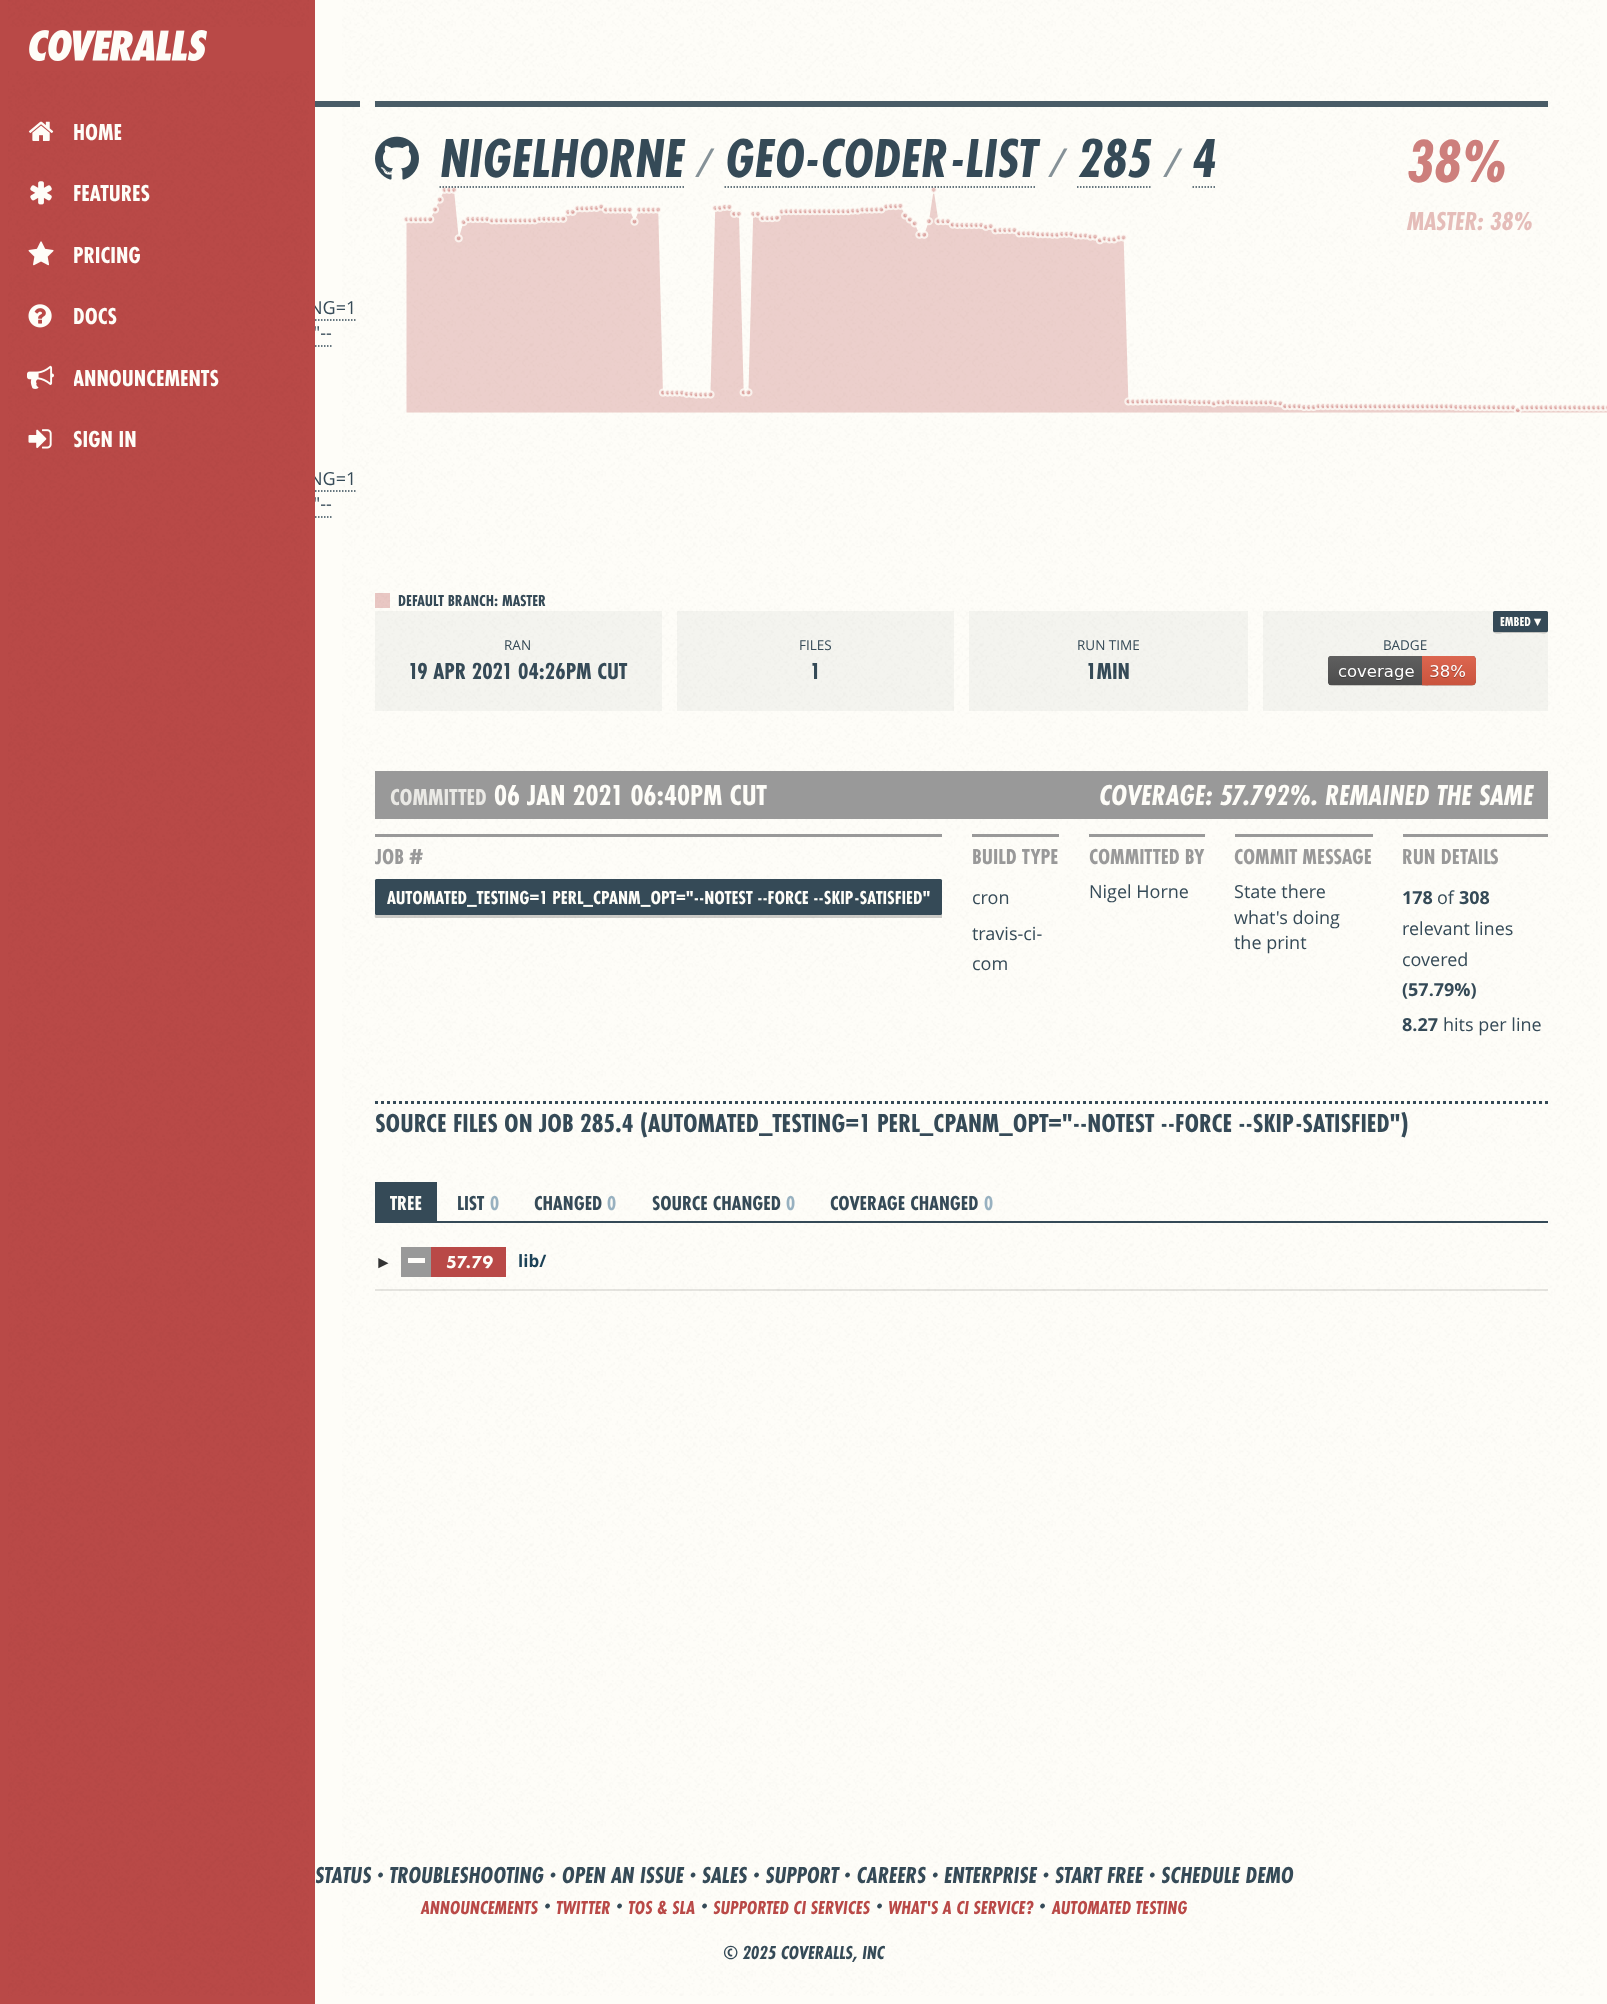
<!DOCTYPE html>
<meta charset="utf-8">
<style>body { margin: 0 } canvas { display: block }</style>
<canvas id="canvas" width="1607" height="2004"></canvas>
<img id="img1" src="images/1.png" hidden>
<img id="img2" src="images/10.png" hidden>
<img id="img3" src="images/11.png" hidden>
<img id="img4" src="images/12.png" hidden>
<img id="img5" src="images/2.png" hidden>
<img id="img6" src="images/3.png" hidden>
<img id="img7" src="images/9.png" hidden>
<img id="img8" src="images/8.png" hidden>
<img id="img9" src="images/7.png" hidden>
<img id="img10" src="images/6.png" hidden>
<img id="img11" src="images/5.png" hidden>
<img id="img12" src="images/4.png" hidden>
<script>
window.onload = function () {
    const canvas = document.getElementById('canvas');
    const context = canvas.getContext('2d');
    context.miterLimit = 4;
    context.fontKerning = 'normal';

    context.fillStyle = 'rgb(254, 253, 248)';
    context.fillRect(0, 0, 1607, 2004);
    context.fillStyle = 'rgb(229, 228, 223)';
    context.fillRect(375, 1289, 1173, 2);
    context.fillStyle = 'rgb(233, 199, 195)';
    context.fillRect(375, 593, 15, 15);
    context.drawImage(document.getElementById('img1'), 342, 0, 1258, 1996);
    context.fillStyle = 'rgba(53, 74, 87, 0.9)';
    context.fillRect(315, 101, 45, 6);
    context.beginPath();
    context.moveTo(147, 320);
    context.lineTo(357, 320);
    context.strokeStyle = 'rgb(53, 74, 87)';
    context.lineWidth = 1.5;
    context.setLineDash([1.5, 1.5]);
    context.stroke();
    context.beginPath();
    context.moveTo(147, 346);
    context.lineTo(331.5, 346);
    context.stroke();
    context.beginPath();
    context.moveTo(147, 491);
    context.lineTo(357, 491);
    context.stroke();
    context.beginPath();
    context.moveTo(147, 517);
    context.lineTo(331.5, 517);
    context.stroke();
    context.fillRect(375, 101, 1173, 6);
    context.drawImage(document.getElementById('img2'), 375, 136, 44, 44);
    context.drawImage(document.getElementById('img3'), 403, 187, 1204, 226);
    context.beginPath();
    context.moveTo(439.5, 187);
    context.lineTo(684, 187);
    context.stroke();
    context.beginPath();
    context.moveTo(724.5, 187);
    context.lineTo(1036.5, 187);
    context.stroke();
    context.beginPath();
    context.moveTo(1077, 187);
    context.lineTo(1152, 187);
    context.stroke();
    context.beginPath();
    context.moveTo(1192.5, 187);
    context.lineTo(1216.5, 187);
    context.stroke();
    context.fillStyle = 'rgba(53, 74, 87, 0.05)';
    context.fillRect(1263, 611, 285, 100);
    context.fillStyle = 'rgba(0, 0, 0, 0.2)';
    context.beginPath();
    context.moveTo(1493, 631);
    context.bezierCurveTo(1493, 635, 1503, 633, 1503, 633);
    context.lineTo(1538, 633);
    context.bezierCurveTo(1543, 633, 1548, 635, 1548, 630);
    context.bezierCurveTo(1548, 631, 1547, 631, 1546, 632);
    context.bezierCurveTo(1541, 632, 1494, 632, 1493, 631);
    context.closePath();
    context.fill();
    context.fillStyle = 'rgb(53, 74, 87)';
    context.beginPath();
    context.roundRect(1493, 611, 55, 21, 1.5);
    context.fill();
    context.drawImage(document.getElementById('img4'), 1328, 656, 148, 30);
    context.fillStyle = 'rgba(53, 74, 87, 0.05)';
    context.fillRect(375, 611, 287, 100);
    context.fillRect(677, 611, 277, 100);
    context.fillRect(969, 611, 279, 100);
    context.fillStyle = 'rgb(153, 153, 153)';
    context.fillRect(375, 771, 1173, 48);
    context.fillRect(375, 834, 567, 3);
    context.fillStyle = 'rgba(0, 0, 0, 0.2)';
    context.beginPath();
    context.moveTo(375, 914);
    context.bezierCurveTo(375, 915, 374, 918, 376, 918);
    context.lineTo(940, 918);
    context.lineTo(942, 918);
    context.lineTo(942, 914);
    context.bezierCurveTo(942, 914, 941, 915, 940, 915);
    context.lineTo(376, 915);
    context.bezierCurveTo(376, 915, 375, 914, 375, 914);
    context.closePath();
    context.fill();
    context.fillStyle = 'rgb(53, 74, 87)';
    context.beginPath();
    context.roundRect(375, 879, 567, 36, 1.5);
    context.fill();
    context.fillStyle = 'rgb(153, 153, 153)';
    context.fillRect(972, 834, 87, 3);
    context.fillRect(1089, 834, 116, 3);
    context.fillRect(1235, 834, 138, 3);
    context.fillRect(1403, 834, 145, 3);
    context.beginPath();
    context.moveTo(375, 1102.5);
    context.lineTo(1548, 1102.5);
    context.lineWidth = 3;
    context.setLineDash([3, 3]);
    context.stroke();
    context.fillStyle = 'rgb(53, 74, 87)';
    context.fillRect(375, 1221, 1173, 2);
    context.fillRect(375, 1182, 62, 39);
    context.fillStyle = 'rgb(153, 153, 153)';
    context.fillRect(401, 1247, 30, 30);
    context.fillStyle = 'rgb(255, 253, 250)';
    context.fillRect(408, 1258, 17, 5);
    context.fillStyle = 'rgb(185, 73, 71)';
    context.fillRect(431, 1247, 75, 30);
    context.font = '18px Open Sans';
    context.fillStyle = 'rgb(53, 74, 87)';
    context.fillText('NG=1', 309, 314);
    context.fillText('"--', 313, 339);
    context.fillText('NG=1', 309, 485);
    context.fillText('"--', 313, 510);
    context.fillStyle = 'rgb(185, 73, 71)';
    context.fillRect(0, 0, 315, 2004);
    context.drawImage(document.getElementById('img5'), 8, 0, 301, 1996);
    context.fillRect(8, 27, 301, 44);
    context.drawImage(document.getElementById('img6'), 29, 30, 178, 32);
    context.font = 'bold 24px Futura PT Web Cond';
    context.fillStyle = 'rgb(254, 253, 248)';
    context.fillText('SIGN IN', 73, 447);
    context.drawImage(document.getElementById('img7'), 28, 429, 24, 20);
    context.save();
    context.beginPath();
    context.rect(74, 362, 145, 31);
    context.clip();
    context.fillText('ANNOUNCEMENTS', 73, 386);
    context.restore();
    context.drawImage(document.getElementById('img8'), 27, 365, 27, 24);
    context.fillText('DOCS', 73, 324);
    context.drawImage(document.getElementById('img9'), 28, 304, 24, 24);
    context.fillText('PRICING', 73, 263);
    context.drawImage(document.getElementById('img10'), 28, 241, 26, 25);
    context.fillText('FEATURES', 73, 201);
    context.drawImage(document.getElementById('img11'), 30, 181, 22, 24);
    context.fillText('HOME', 73, 140);
    context.drawImage(document.getElementById('img12'), 28, 121, 26, 20);
    context.font = 'italic bold 57px Futura PT Web Cond';
    context.fillStyle = 'rgb(53, 74, 87)';
    context.fillText('NIGELHORNE', 440, 177);
    context.font = 'italic 40px Open Sans';
    context.fillStyle = 'rgb(133, 145, 151)';
    context.fillText('/', 697, 177);
    context.font = 'italic bold 57px Futura PT Web Cond';
    context.fillStyle = 'rgb(53, 74, 87)';
    context.fillText('GEO-CODER-LIST', 725, 177);
    context.font = 'italic 40px Open Sans';
    context.fillStyle = 'rgb(133, 145, 151)';
    context.fillText('/', 1050, 177);
    context.font = 'italic bold 57px Futura PT Web Cond';
    context.fillStyle = 'rgb(53, 74, 87)';
    context.fillText('285', 1078, 177);
    context.font = 'italic 40px Open Sans';
    context.fillStyle = 'rgb(133, 145, 151)';
    context.fillText('/', 1165, 177);
    context.font = 'italic bold 57px Futura PT Web Cond';
    context.fillStyle = 'rgb(53, 74, 87)';
    context.fillText('4', 1192, 177);
    context.font = 'italic bold 63px Futura PT Web Cond';
    context.fillStyle = 'rgb(205, 127, 124)';
    context.fillText('38%', 1407, 182);
    context.font = 'italic bold 27px Futura PT Web Cond';
    context.fillStyle = 'rgb(229, 189, 185)';
    context.fillText('MASTER: 38%', 1407, 230);
    context.font = 'bold 16.5px Futura PT Web Cond';
    context.fillStyle = 'rgb(53, 74, 87)';
    context.fillText('DEFAULT BRANCH: MASTER', 398, 606);
    context.font = 'bold 13.5px Futura PT Web Cond';
    context.fillStyle = 'rgb(254, 253, 248)';
    context.fillText('EMBED', 1500, 626);
    context.font = 'bold 13.5px DejaVu Sans';
    context.fillText('▾', 1534, 626);
    context.font = '13.5px Open Sans';
    context.fillStyle = 'rgb(53, 74, 87)';
    context.fillText('BADGE', 1383, 650);
    context.fillText('RAN', 504, 650);
    context.font = 'bold 24px Futura PT Web Cond';
    context.fillText('19 APR 2021 04:26PM CUT', 408, 679);
    context.font = '13.5px Open Sans';
    context.fillText('FILES', 799, 650);
    context.font = 'bold 24px Futura PT Web Cond';
    context.fillText('1', 810, 679);
    context.font = '13.5px Open Sans';
    context.fillText('RUN TIME', 1077, 650);
    context.font = 'bold 24px Futura PT Web Cond';
    context.fillText('1MIN', 1086, 679);
    context.fillStyle = 'rgb(234, 233, 229)';
    context.fillText('COMMITTED', 390, 805);
    context.font = 'bold 30px Futura PT Web Cond';
    context.fillStyle = 'rgb(254, 253, 248)';
    context.fillText('06 JAN 2021 06:40PM CUT', 494, 805);
    context.font = 'italic bold 30px Futura PT Web Cond';
    context.fillText('COVERAGE: 57.792%. REMAINED THE SAME', 1099, 805);
    context.font = 'bold 22.5px Futura PT Web Cond';
    context.fillStyle = 'rgb(153, 153, 153)';
    context.fillText('JOB #', 375, 864);
    context.font = 'bold 19.5px Futura PT Web Cond';
    context.fillStyle = 'rgb(254, 253, 248)';
    context.fillText('AUTOMATED_TESTING=1 PERL_CPANM_OPT="--NOTEST --FORCE --SKIP-SATISFIED"', 387, 904);
    context.font = 'bold 22.5px Futura PT Web Cond';
    context.fillStyle = 'rgb(153, 153, 153)';
    context.fillText('BUILD TYPE', 972, 864);
    context.font = '18px Open Sans';
    context.fillStyle = 'rgb(53, 74, 87)';
    context.fillText('cron', 972, 904);
    context.fillText('travis-ci-', 972, 940);
    context.fillText('com', 972, 970);
    context.font = 'bold 22.5px Futura PT Web Cond';
    context.fillStyle = 'rgb(153, 153, 153)';
    context.fillText('COMMITTED BY', 1089, 864);
    context.font = '18px Open Sans';
    context.fillStyle = 'rgb(53, 74, 87)';
    context.fillText('Nigel Horne', 1089, 898);
    context.font = 'bold 22.5px Futura PT Web Cond';
    context.fillStyle = 'rgb(153, 153, 153)';
    context.fillText('COMMIT MESSAGE', 1234, 864);
    context.font = '18px Open Sans';
    context.fillStyle = 'rgb(53, 74, 87)';
    context.fillText('State there', 1234, 898);
    context.fillText('what\'s doing', 1234, 924);
    context.fillText('the print', 1234, 949);
    context.font = 'bold 22.5px Futura PT Web Cond';
    context.fillStyle = 'rgb(153, 153, 153)';
    context.fillText('RUN DETAILS', 1402, 864);
    context.font = 'bold 18px Open Sans';
    context.fillStyle = 'rgb(53, 74, 87)';
    context.fillText('178', 1402, 904);
    context.font = '18px Open Sans';
    context.fillText('of', 1437, 904);
    context.font = 'bold 18px Open Sans';
    context.fillText('308', 1459, 904);
    context.font = '18px Open Sans';
    context.fillText('relevant lines', 1402, 935);
    context.fillText('covered', 1402, 966);
    context.font = 'bold 18px Open Sans';
    context.fillText('(57.79%)', 1402, 996);
    context.fillText('8.27', 1402, 1031);
    context.font = '18px Open Sans';
    context.fillText('hits per line', 1443, 1031);
    context.font = 'bold 27px Futura PT Web Cond';
    context.fillText('SOURCE FILES ON JOB 285.4 (AUTOMATED_TESTING=1 PERL_CPANM_OPT="--NOTEST --FORCE --SKIP-SATISFIED")', 375, 1132);
    context.font = 'bold 21px Futura PT Web Cond';
    context.fillStyle = 'rgb(254, 253, 248)';
    context.fillText('TREE', 390, 1210);
    context.fillStyle = 'rgb(53, 74, 87)';
    context.fillText('LIST', 457, 1210);
    context.fillStyle = 'rgb(152, 177, 192)';
    context.fillText('0', 490, 1210);
    context.fillStyle = 'rgb(53, 74, 87)';
    context.fillText('CHANGED', 534, 1210);
    context.fillStyle = 'rgb(152, 177, 192)';
    context.fillText('0', 607, 1210);
    context.fillStyle = 'rgb(53, 74, 87)';
    context.fillText('SOURCE CHANGED', 652, 1210);
    context.fillStyle = 'rgb(152, 177, 192)';
    context.fillText('0', 786, 1210);
    context.fillStyle = 'rgb(53, 74, 87)';
    context.fillText('COVERAGE CHANGED', 830, 1210);
    context.fillStyle = 'rgb(152, 177, 192)';
    context.fillText('0', 984, 1210);
    context.font = '17px Liberation Sans';
    context.fillStyle = 'rgb(51, 51, 51)';
    context.fillText('►', 375, 1268);
    context.letterSpacing = '0.75px';
    context.font = '900 18px Futura PT';
    context.fillStyle = 'rgb(254, 253, 248)';
    context.fillText('57.79', 446, 1268);
    context.letterSpacing = '0px';
    context.font = 'bold 17px Open Sans';
    context.fillStyle = 'rgb(28, 66, 87)';
    context.fillText('lib/', 518, 1267);
    context.font = 'italic bold 24px Futura PT Web Cond';
    context.fillStyle = 'rgb(53, 74, 87)';
    context.fillText('STATUS · TROUBLESHOOTING · OPEN AN ISSUE · SALES · SUPPORT · CAREERS · ENTERPRISE · START FREE · SCHEDULE DEMO', 315, 1883);
    context.font = 'italic bold 19.5px Futura PT Web Cond';
    context.fillStyle = 'rgb(185, 73, 71)';
    context.fillText('ANNOUNCEMENTS', 421, 1914);
    context.font = 'italic bold 24px Futura PT Web Cond';
    context.fillStyle = 'rgb(53, 74, 87)';
    context.fillText('·', 544, 1914);
    context.font = 'italic bold 19.5px Futura PT Web Cond';
    context.fillStyle = 'rgb(185, 73, 71)';
    context.fillText('TWITTER', 556, 1914);
    context.font = 'italic bold 24px Futura PT Web Cond';
    context.fillStyle = 'rgb(53, 74, 87)';
    context.fillText('·', 616, 1914);
    context.font = 'italic bold 19.5px Futura PT Web Cond';
    context.fillStyle = 'rgb(185, 73, 71)';
    context.fillText('TOS & SLA', 628, 1914);
    context.font = 'italic bold 24px Futura PT Web Cond';
    context.fillStyle = 'rgb(53, 74, 87)';
    context.fillText('·', 701, 1914);
    context.font = 'italic bold 19.5px Futura PT Web Cond';
    context.fillStyle = 'rgb(185, 73, 71)';
    context.fillText('SUPPORTED CI SERVICES', 713, 1914);
    context.font = 'italic bold 24px Futura PT Web Cond';
    context.fillStyle = 'rgb(53, 74, 87)';
    context.fillText('·', 876, 1914);
    context.font = 'italic bold 19.5px Futura PT Web Cond';
    context.fillStyle = 'rgb(185, 73, 71)';
    context.fillText('WHAT\'S A CI SERVICE?', 888, 1914);
    context.font = 'italic bold 24px Futura PT Web Cond';
    context.fillStyle = 'rgb(53, 74, 87)';
    context.fillText('·', 1039, 1914);
    context.font = 'italic bold 19.5px Futura PT Web Cond';
    context.fillStyle = 'rgb(185, 73, 71)';
    context.fillText('AUTOMATED TESTING', 1052, 1914);
    context.fillStyle = 'rgb(53, 74, 87)';
    context.fillText('© 2025 COVERALLS, INC', 723, 1959);
};
</script>
